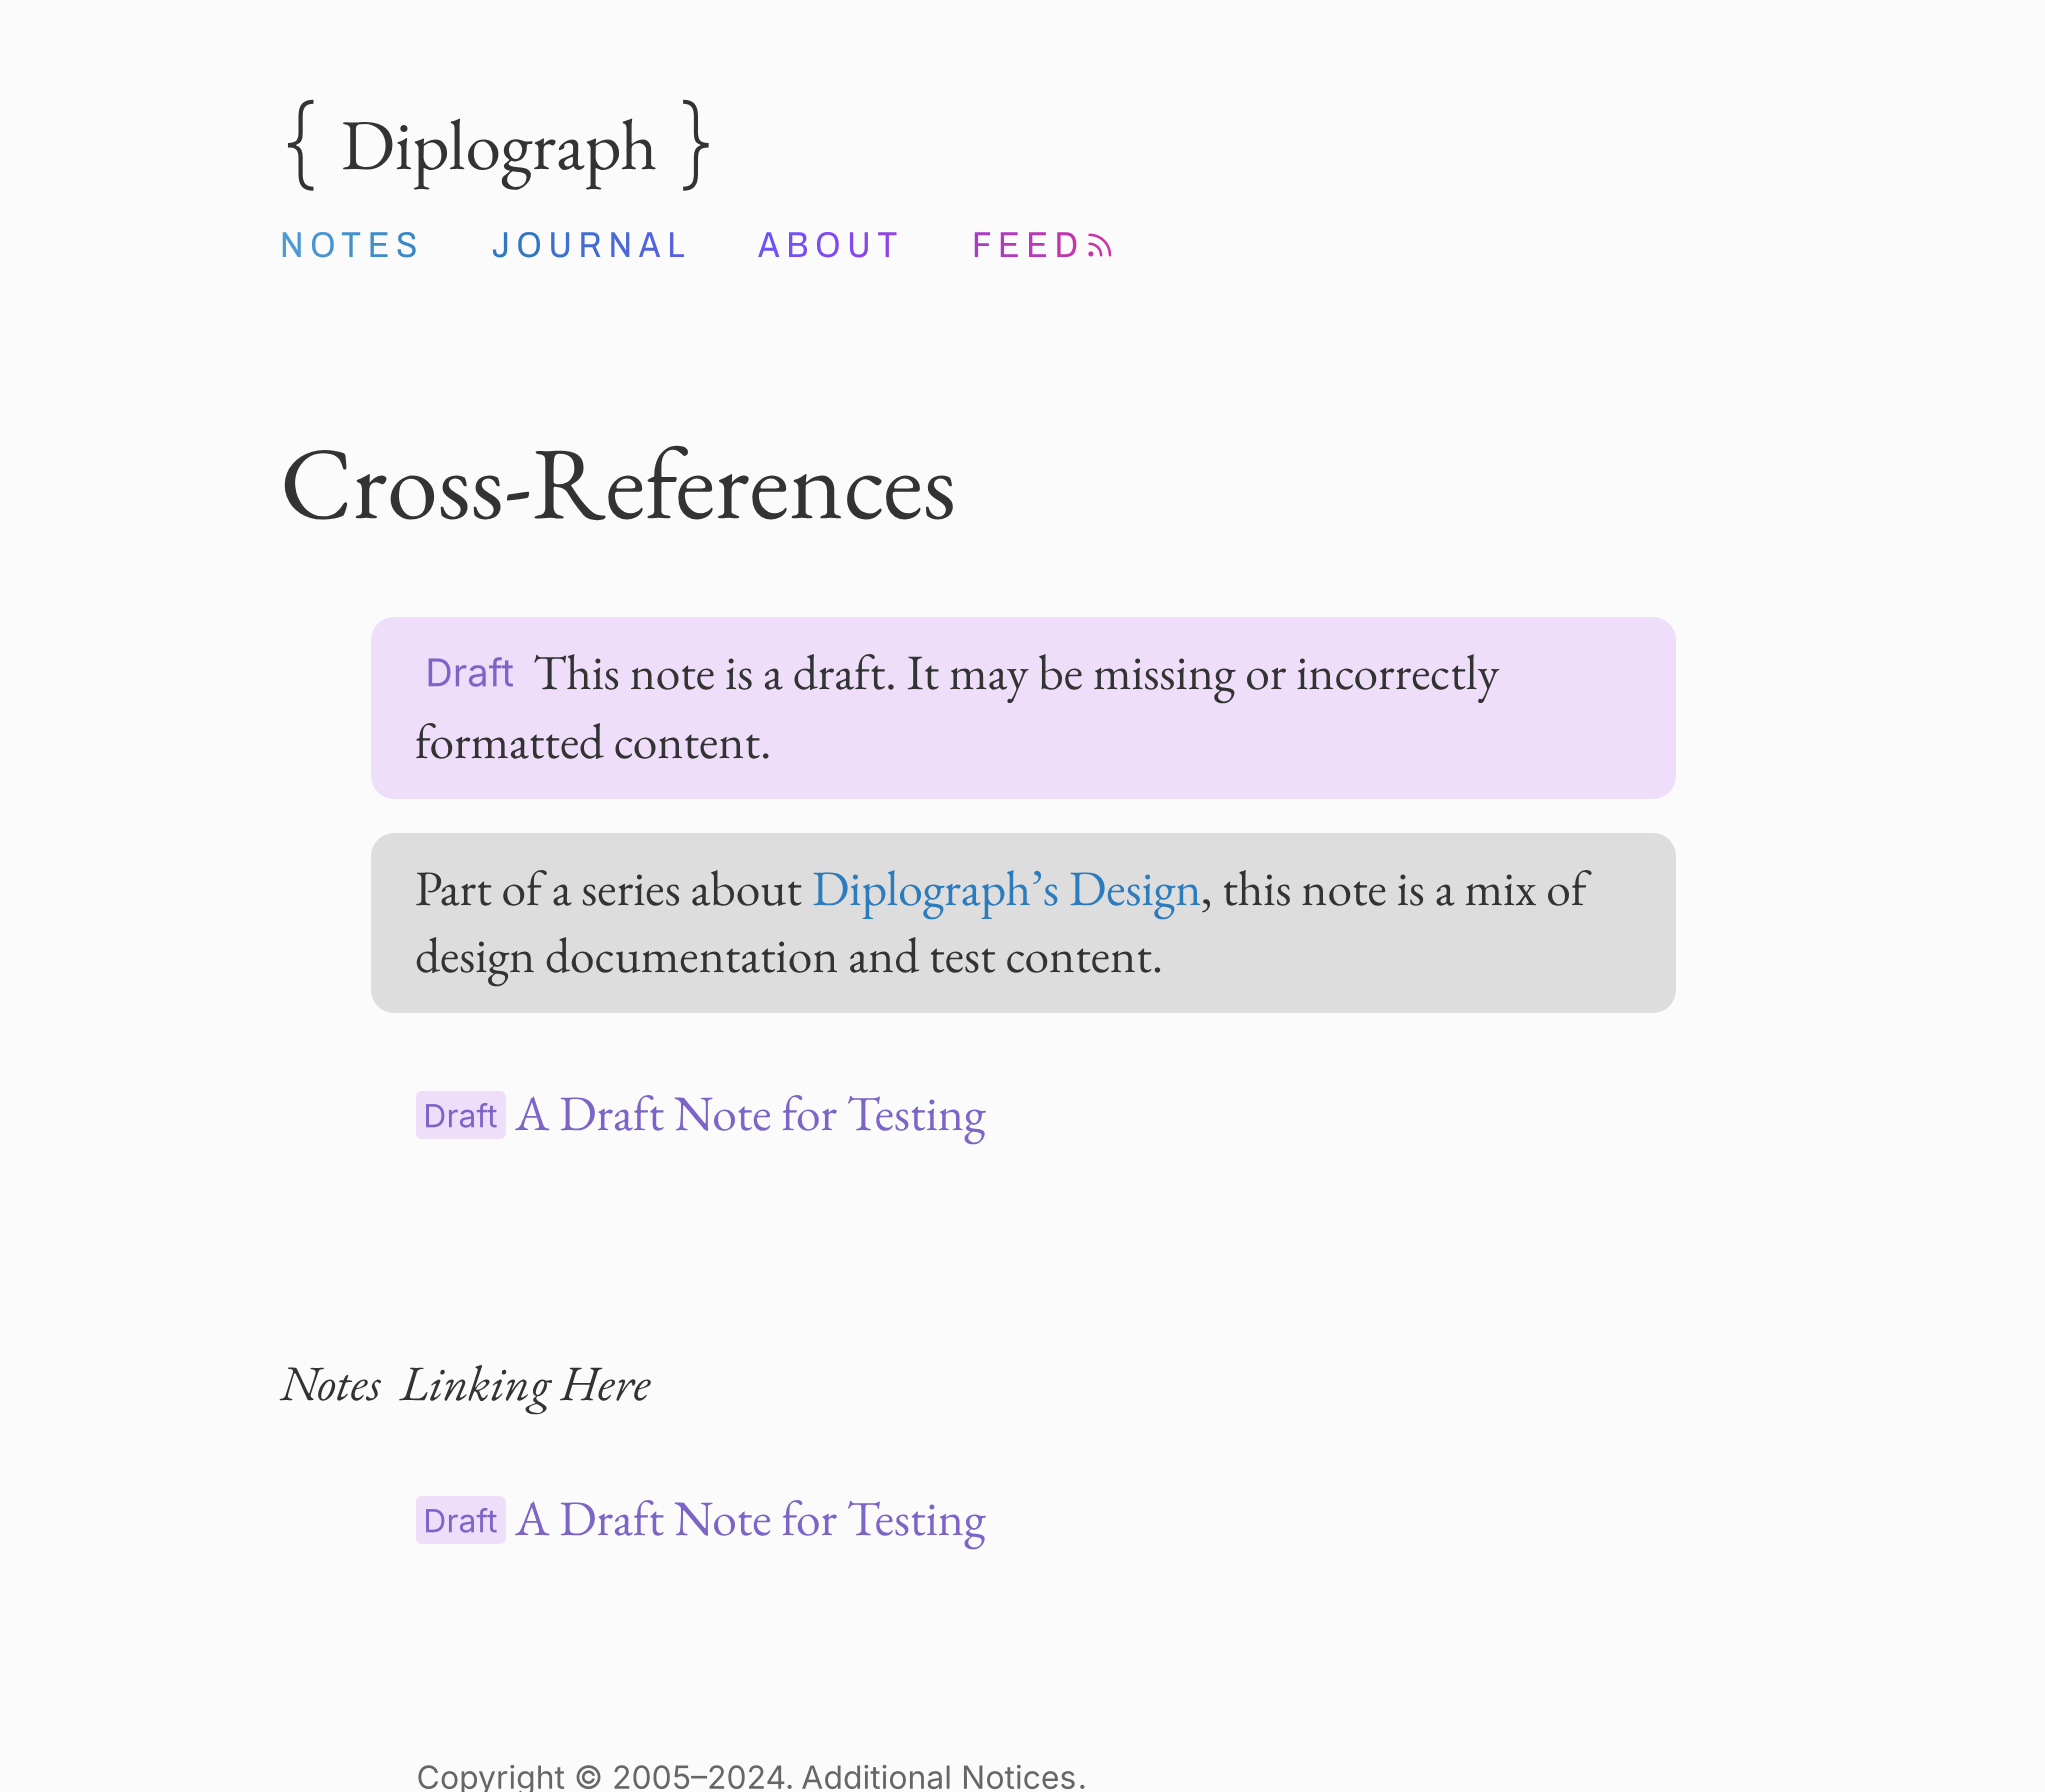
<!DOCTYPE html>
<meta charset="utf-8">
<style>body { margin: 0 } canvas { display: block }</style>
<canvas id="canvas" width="2045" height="1792"></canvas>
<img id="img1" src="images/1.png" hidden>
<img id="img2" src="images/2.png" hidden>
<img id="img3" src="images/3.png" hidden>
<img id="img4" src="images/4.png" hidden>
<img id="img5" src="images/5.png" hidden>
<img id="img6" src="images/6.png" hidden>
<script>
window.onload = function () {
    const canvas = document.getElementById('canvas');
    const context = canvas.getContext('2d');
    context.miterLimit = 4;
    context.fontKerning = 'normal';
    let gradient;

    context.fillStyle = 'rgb(251, 251, 251)';
    context.fillRect(0, 0, 2045, 1792);
    context.drawImage(document.getElementById('img1'), 1088, 233, 24, 24);
    context.fillStyle = 'rgb(238, 222, 250)';
    context.beginPath();
    context.roundRect(371, 617, 1305, 182, 23);
    context.fill();
    context.drawImage(document.getElementById('img2'), 428, 657, 86, 30);
    context.fillStyle = 'rgb(221, 221, 221)';
    context.beginPath();
    context.roundRect(371, 833, 1305, 180, 23);
    context.fill();
    context.fillStyle = 'rgb(238, 222, 250)';
    context.beginPath();
    context.roundRect(416, 1091, 90, 48, 6);
    context.fill();
    context.drawImage(document.getElementById('img3'), 426, 1103, 71, 25);
    context.beginPath();
    context.roundRect(416, 1496, 90, 48, 6);
    context.fill();
    context.drawImage(document.getElementById('img3'), 426, 1508, 71, 25);
    context.drawImage(document.getElementById('img4'), 418, 1764, 374, 28);
    context.drawImage(document.getElementById('img5'), 802, 1764, 273, 26);
    context.drawImage(document.getElementById('img6'), 1080, 1784, 5, 5);
    context.font = '200 100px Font';
    context.fillStyle = 'rgb(51, 51, 51)';
    context.fillText('{', 280, 177);
    context.font = '71.5px Font';
    context.fillText('Diplograph', 341, 169);
    context.font = '200 100px Font';
    context.fillText('}', 676, 177);
    context.letterSpacing = '6.75px';
    context.font = '36px "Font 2"';
    gradient = context.createLinearGradient(1122, 245, 280, 245);
    gradient.addColorStop(0, 'rgb(211, 48, 156)');
    gradient.addColorStop(0.38, 'rgb(118, 77, 250)');
    gradient.addColorStop(0.75, 'rgb(43, 123, 189)');
    gradient.addColorStop(1, 'rgb(79, 155, 213)');
    context.fillStyle = gradient;
    context.fillText('NOTES', 280, 257);
    context.fillText('JOURNAL', 492, 257);
    context.fillText('ABOUT', 758, 257);
    context.fillText('FEED', 972, 257);
    context.letterSpacing = '0px';
    context.font = '102.5px Font';
    context.fillStyle = 'rgb(51, 51, 51)';
    context.fillText('Cross-References', 280, 518);
    context.font = '49.5px Font';
    context.fillText('This note is a draft. It may be missing or incorrectly', 533, 689);
    context.fillText('formatted content.', 415, 758);
    context.fillText('Part of a series about', 415, 905);
    context.fillStyle = 'rgb(43, 123, 189)';
    context.fillText('Diplograph’s Design', 812, 905);
    context.fillStyle = 'rgb(51, 51, 51)';
    context.fillText(', this note is a mix of', 1201, 905);
    context.fillText('design documentation and test content.', 415, 972);
    context.fillStyle = 'rgb(124, 101, 199)';
    context.fillText('A Draft Note for Testing', 515, 1130);
    context.font = 'italic 49.5px Font';
    context.fillStyle = 'rgb(51, 51, 51)';
    context.fillText('Notes', 280, 1400);
    context.fillText('Linking Here', 400, 1400);
    context.font = '49.5px Font';
    context.fillStyle = 'rgb(124, 101, 199)';
    context.fillText('A Draft Note for Testing', 515, 1535);
};
</script>
